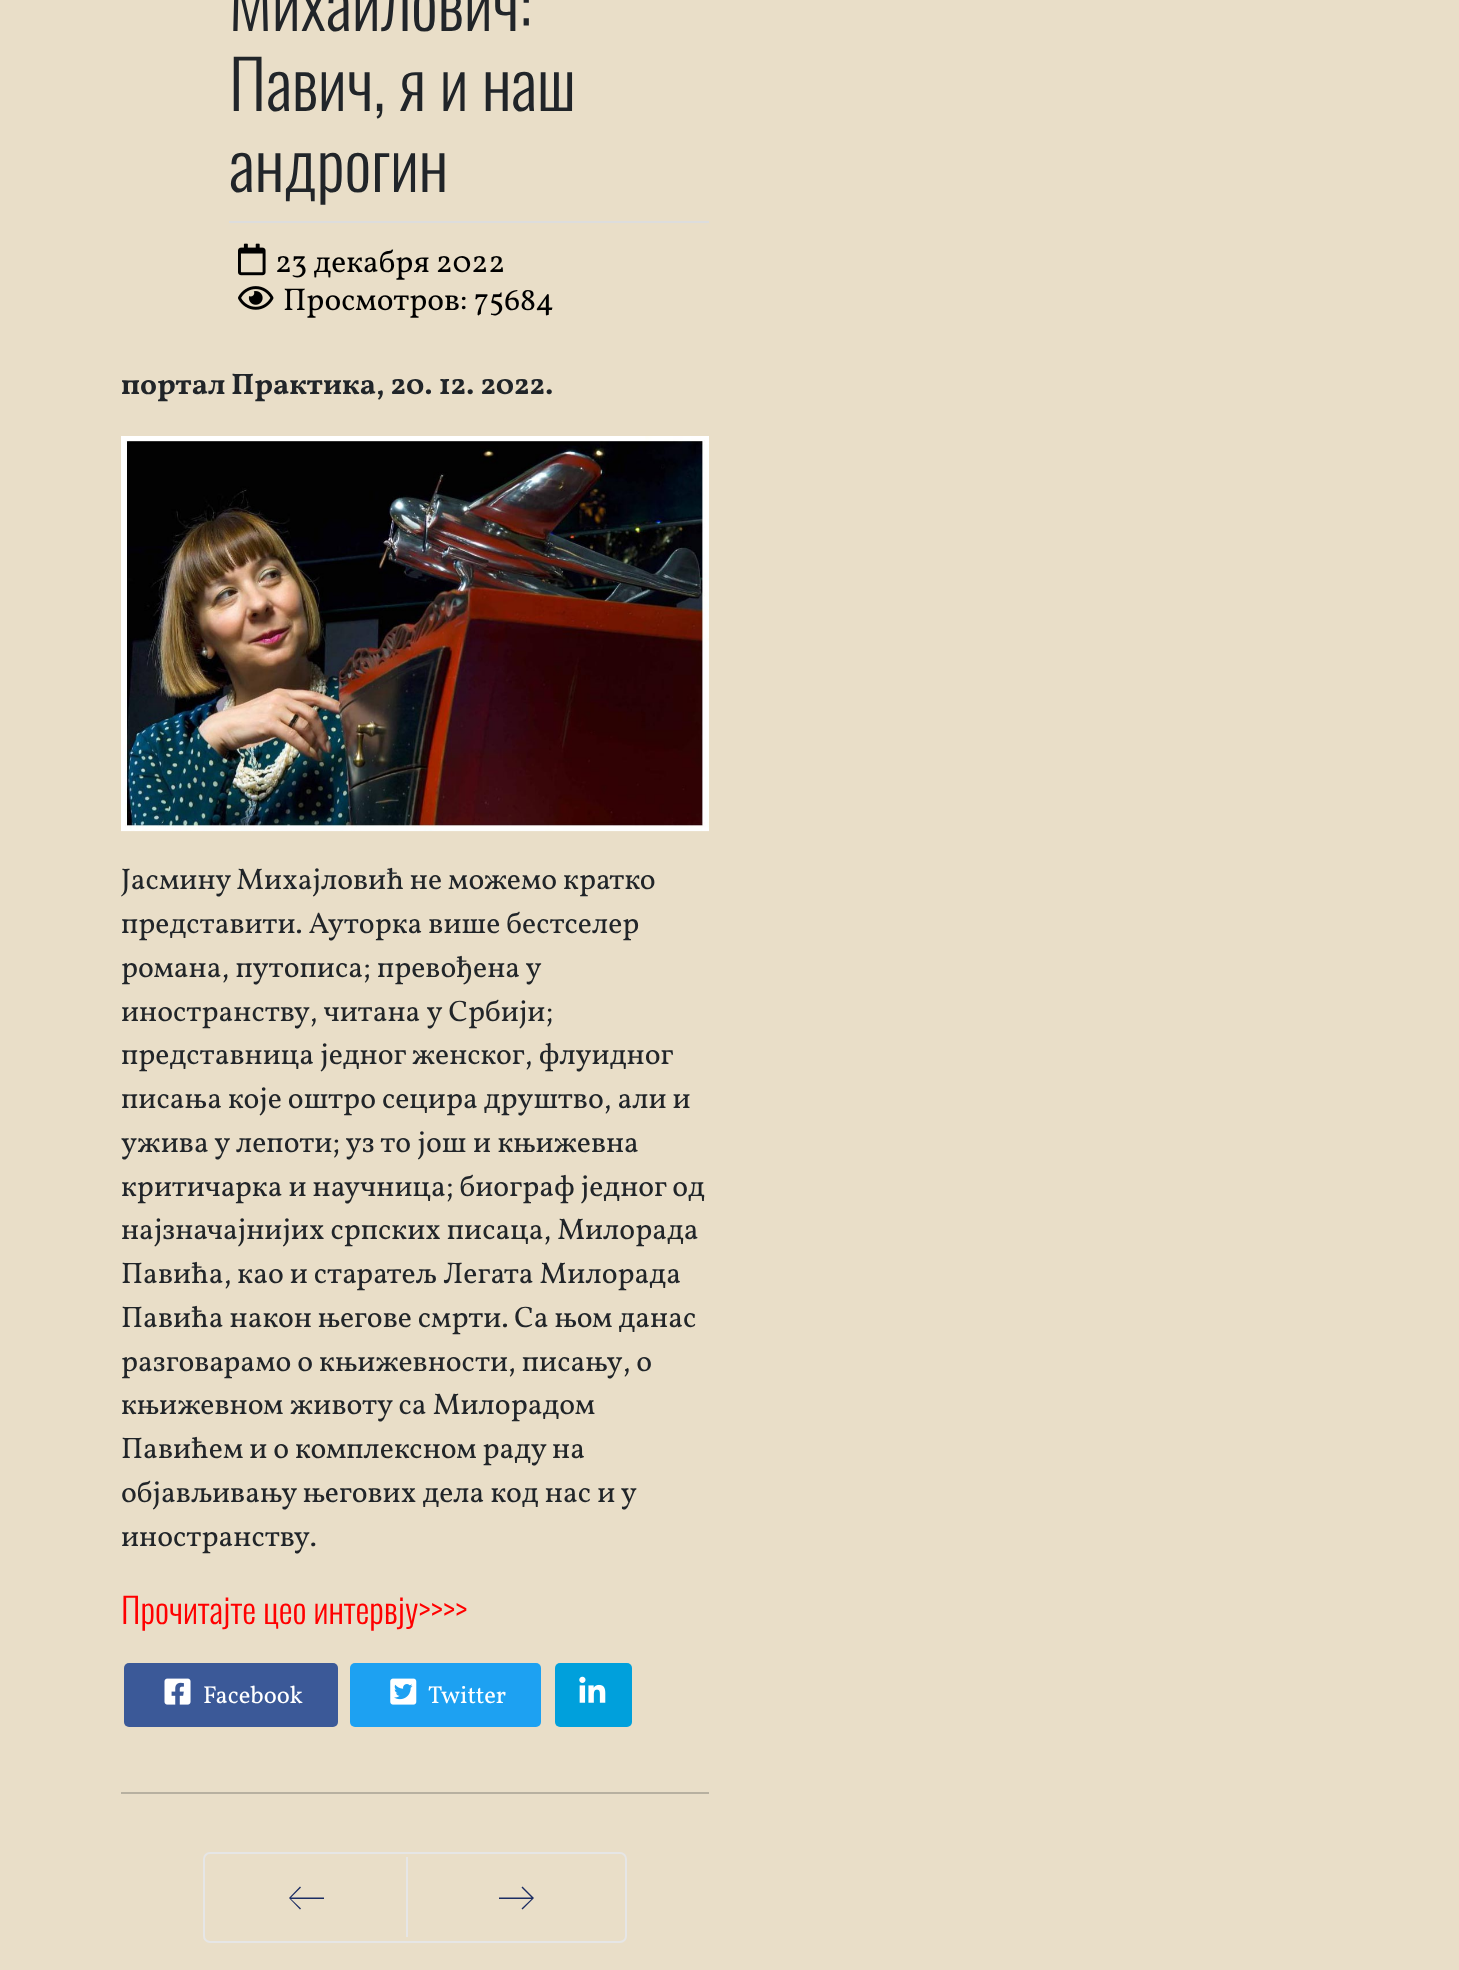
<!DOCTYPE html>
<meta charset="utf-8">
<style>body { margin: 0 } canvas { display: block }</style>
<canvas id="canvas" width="1459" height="1970"></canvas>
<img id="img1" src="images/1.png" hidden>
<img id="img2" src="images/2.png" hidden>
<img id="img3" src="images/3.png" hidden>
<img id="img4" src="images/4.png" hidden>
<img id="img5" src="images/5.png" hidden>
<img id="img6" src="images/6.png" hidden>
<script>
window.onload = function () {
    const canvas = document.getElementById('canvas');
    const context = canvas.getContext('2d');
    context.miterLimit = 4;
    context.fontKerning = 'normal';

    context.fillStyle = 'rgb(233, 222, 200)';
    context.fillRect(0, 0, 1459, 1970);
    context.fillStyle = 'rgb(221, 221, 221)';
    context.fillRect(229, 221, 480, 2);
    context.drawImage(document.getElementById('img1'), 238, 243, 28, 33);
    context.drawImage(document.getElementById('img2'), 238, 286, 36, 24);
    context.drawImage(document.getElementById('img3'), 121, 436, 588, 396);
    context.fillStyle = 'rgb(59, 89, 152)';
    context.beginPath();
    context.roundRect(124, 1663, 214, 64, 5);
    context.fill();
    context.drawImage(document.getElementById('img4'), 164, 1678, 27, 27);
    context.fillStyle = 'rgb(29, 161, 242)';
    context.beginPath();
    context.roundRect(350, 1663, 191, 64, 5);
    context.fill();
    context.drawImage(document.getElementById('img5'), 390, 1678, 27, 27);
    context.fillStyle = 'rgb(0, 160, 220)';
    context.beginPath();
    context.roundRect(555, 1663, 77, 64, 5);
    context.fill();
    context.drawImage(document.getElementById('img6'), 579, 1676, 27, 27);
    context.fillStyle = 'rgb(183, 176, 160)';
    context.fillRect(121, 1792, 588, 2);
    context.beginPath();
    context.roundRect(204, 1853, 422, 89, 6);
    context.strokeStyle = 'rgb(230, 230, 230)';
    context.lineWidth = 2;
    context.stroke();
    context.fillStyle = 'rgb(230, 230, 230)';
    context.fillRect(406, 1857, 2, 80);
    context.fillStyle = 'rgb(27, 44, 98)';
    context.beginPath();
    context.moveTo(324, 1897.5);
    context.lineTo(291, 1897.5);
    context.lineTo(301, 1887.5);
    context.lineTo(300, 1886.5);
    context.lineTo(289, 1898);
    context.lineTo(300, 1909.5);
    context.lineTo(301, 1908.5);
    context.lineTo(291, 1899);
    context.lineTo(324, 1899);
    context.closePath();
    context.fill();
    context.beginPath();
    context.moveTo(522.5, 1886.5);
    context.lineTo(521.5, 1887.5);
    context.lineTo(531.5, 1897.5);
    context.lineTo(499, 1897.5);
    context.lineTo(499, 1899);
    context.lineTo(531.5, 1899);
    context.lineTo(521.5, 1908.5);
    context.lineTo(522.5, 1909.5);
    context.lineTo(534, 1898);
    context.closePath();
    context.fill();
    context.font = '300 67px Oswald';
    context.fillStyle = 'rgb(33, 37, 41)';
    context.fillText('Михайлович:', 229, 31);
    context.fillText('Павич, я и наш', 229, 111);
    context.fillText('андрогин', 229, 192);
    context.font = '31.5px Vollkorn';
    context.fillStyle = 'rgb(0, 0, 0)';
    context.fillText('23 декабря 2022', 275, 272);
    context.fillText('Просмотров: 75684', 283, 310);
    context.font = 'bold 29.75px Vollkorn';
    context.fillStyle = 'rgb(33, 37, 41)';
    context.fillText('портал Практика, 20. 12. 2022.', 121, 394);
    context.font = '29.75px Vollkorn';
    context.fillText('Јасмину Михајловић не можемо кратко', 121, 889);
    context.fillText('представити. Ауторка више бестселер', 121, 933);
    context.wordSpacing = '0.25px';
    context.fillText('романа, путописа; превођена у', 121, 977);
    context.wordSpacing = '1px';
    context.fillText('иностранству, читана у Србији;', 121, 1021);
    context.wordSpacing = '0.25px';
    context.fillText('представница једног женског, флуидног', 121, 1064);
    context.wordSpacing = '0px';
    context.fillText('писања које оштро сецира друштво, али и', 121, 1108);
    context.wordSpacing = '0.5px';
    context.fillText('ужива у лепоти; уз то још и књижевна', 121, 1152);
    context.wordSpacing = '0px';
    context.fillText('критичарка и научница; биограф једног од', 121, 1196);
    context.fillText('најзначајнијих српских писаца, Милорада', 121, 1239);
    context.fillText('Павића, као и старатељ Легата Милорада', 121, 1283);
    context.fillText('Павића након његове смрти. Са њом данас', 121, 1327);
    context.fillText('разговарамо о књижевности, писању, о', 121, 1371);
    context.wordSpacing = '0.25px';
    context.fillText('књижевном животу са Милорадом', 121, 1414);
    context.wordSpacing = '0px';
    context.fillText('Павићем и о комплексном раду на', 121, 1458);
    context.wordSpacing = '0.25px';
    context.fillText('објављивању његових дела код нас и у', 121, 1502);
    context.wordSpacing = '0px';
    context.fillText('иностранству.', 121, 1546);
    context.font = '300 35px Oswald';
    context.fillStyle = 'rgb(255, 0, 0)';
    context.fillText('Прочитајте цео интервју>>>>', 121, 1624);
    context.font = '24.5px Vollkorn';
    context.fillStyle = 'rgb(255, 255, 255)';
    context.fillText('Facebook', 203, 1703);
    context.fillText('Twitter', 428, 1703);
};
</script>
